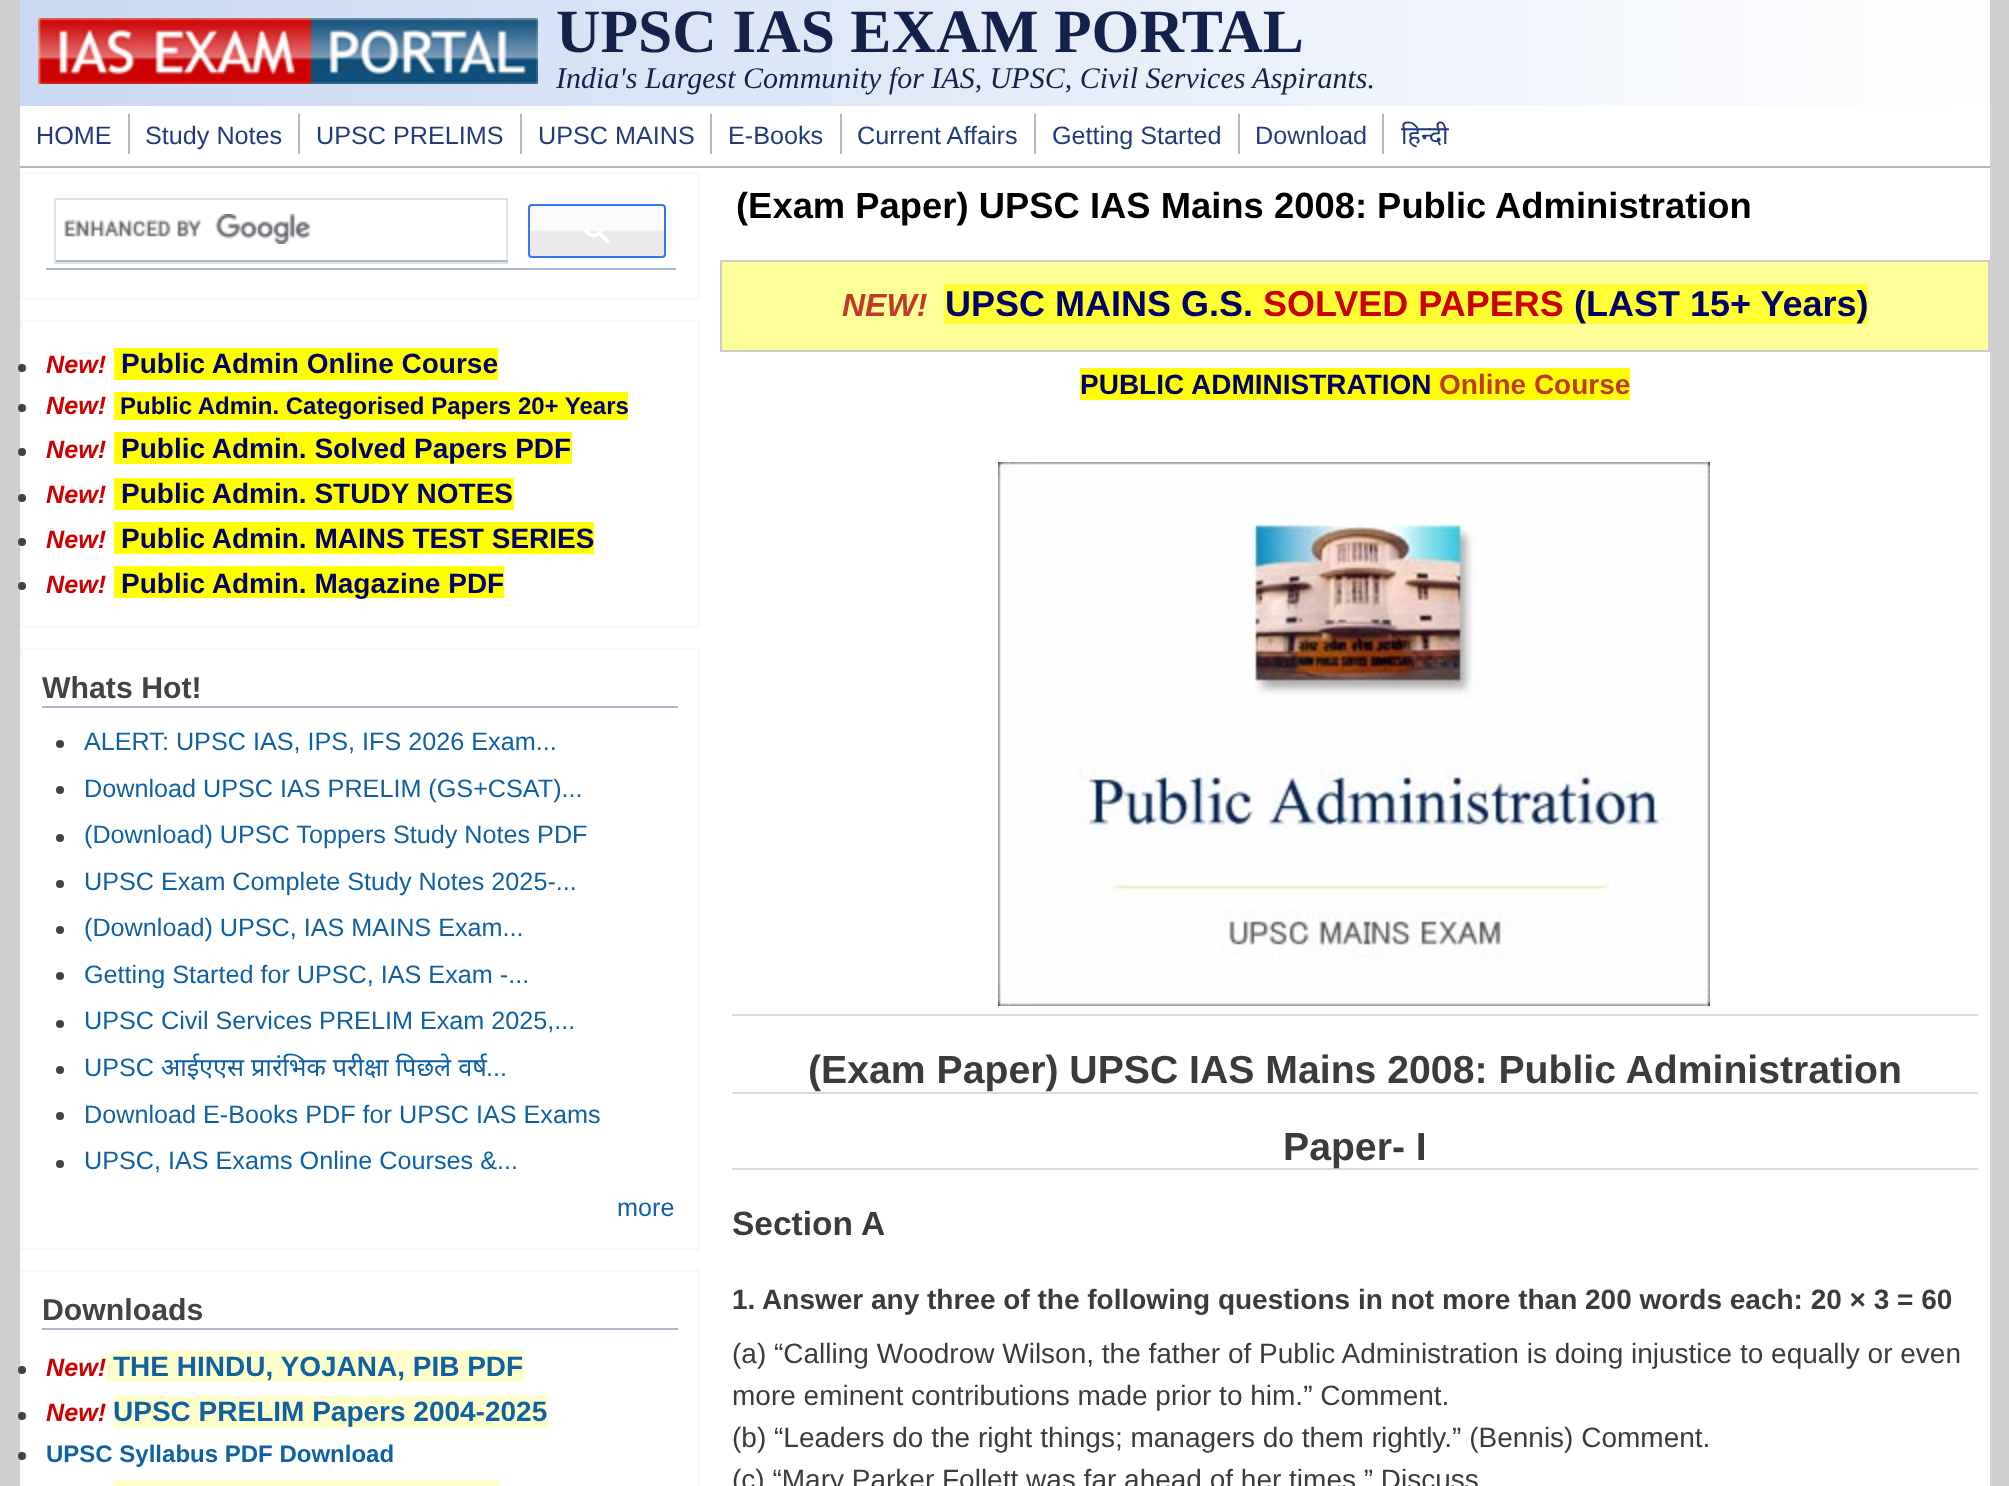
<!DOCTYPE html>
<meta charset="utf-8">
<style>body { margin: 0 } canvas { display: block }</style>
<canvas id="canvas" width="2009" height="1486"></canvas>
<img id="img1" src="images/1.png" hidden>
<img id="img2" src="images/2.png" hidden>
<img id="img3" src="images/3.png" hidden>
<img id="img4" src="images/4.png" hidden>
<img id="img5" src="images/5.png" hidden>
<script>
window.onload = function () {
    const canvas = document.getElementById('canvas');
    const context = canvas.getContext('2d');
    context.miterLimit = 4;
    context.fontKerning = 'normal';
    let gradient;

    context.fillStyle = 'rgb(207, 207, 207)';
    context.fillRect(0, 0, 2009, 1486);
    context.fillStyle = 'rgb(255, 255, 255)';
    context.fillRect(20, 106, 1970, 1380);
    gradient = context.createLinearGradient(20, 53, 1990, 53);
    gradient.addColorStop(0, 'rgb(201, 216, 243)');
    gradient.addColorStop(1, 'rgb(255, 255, 255)');
    context.fillStyle = gradient;
    context.fillRect(20, 0, 1970, 106);
    context.drawImage(document.getElementById('img1'), 38, 18, 500, 66);
    context.fillStyle = 'rgb(184, 184, 184)';
    context.fillRect(20, 166, 1970, 2);
    context.fillRect(128, 114, 2, 40);
    context.fillRect(298, 114, 2, 40);
    context.fillRect(520, 114, 2, 40);
    context.fillRect(710, 114, 2, 40);
    context.fillRect(840, 114, 2, 40);
    context.fillRect(1034, 114, 2, 40);
    context.fillRect(1238, 114, 2, 40);
    context.fillRect(1382, 114, 2, 40);
    context.strokeStyle = 'rgb(246, 247, 247)';
    context.lineWidth = 2;
    context.strokeRect(21, 173, 678, 126);
    context.strokeStyle = 'rgb(223, 225, 229)';
    context.strokeRect(55, 199, 452, 64);
    context.drawImage(document.getElementById('img2'), 64, 214, 246, 30);
    context.fillStyle = 'rgb(172, 182, 205)';
    context.fillRect(56, 260, 452, 2);
    context.fillRect(46, 268, 630, 2);
    context.drawImage(document.getElementById('img3'), 528, 204, 138, 54);
    context.beginPath();
    context.roundRect(529, 205, 136, 52, 3);
    context.strokeStyle = 'rgb(48, 121, 237)';
    context.stroke();
    context.drawImage(document.getElementById('img4'), 584, 230, 26, 14);
    context.strokeStyle = 'rgb(246, 247, 247)';
    context.strokeRect(21, 321, 678, 306);
    context.fillStyle = 'rgb(67, 67, 67)';
    context.beginPath();
    context.arc(22, 368, 4, 0, 2 * Math.PI);
    context.fill();
    context.fillStyle = 'rgb(255, 255, 0)';
    context.fillRect(114, 348, 384, 32);
    context.fillStyle = 'rgb(67, 67, 67)';
    context.beginPath();
    context.arc(22, 408, 4, 0, 2 * Math.PI);
    context.fill();
    context.fillStyle = 'rgb(255, 255, 0)';
    context.fillRect(114, 392, 514, 28);
    context.fillStyle = 'rgb(67, 67, 67)';
    context.beginPath();
    context.arc(22, 452, 4, 0, 2 * Math.PI);
    context.fill();
    context.fillStyle = 'rgb(255, 255, 0)';
    context.fillRect(114, 432, 458, 32);
    context.fillStyle = 'rgb(67, 67, 67)';
    context.beginPath();
    context.arc(22, 498, 4, 0, 2 * Math.PI);
    context.fill();
    context.fillStyle = 'rgb(255, 255, 0)';
    context.fillRect(114, 478, 400, 32);
    context.fillStyle = 'rgb(67, 67, 67)';
    context.beginPath();
    context.arc(22, 542, 4, 0, 2 * Math.PI);
    context.fill();
    context.fillStyle = 'rgb(255, 255, 0)';
    context.fillRect(114, 522, 480, 32);
    context.fillStyle = 'rgb(67, 67, 67)';
    context.beginPath();
    context.arc(22, 586, 4, 0, 2 * Math.PI);
    context.fill();
    context.fillStyle = 'rgb(255, 255, 0)';
    context.fillRect(114, 566, 390, 32);
    context.strokeRect(21, 649, 678, 600);
    context.fillStyle = 'rgb(172, 182, 205)';
    context.fillRect(42, 706, 636, 2);
    context.fillStyle = 'rgb(67, 67, 67)';
    context.beginPath();
    context.arc(60, 744, 4, 0, 2 * Math.PI);
    context.fill();
    context.beginPath();
    context.arc(60, 790, 4, 0, 2 * Math.PI);
    context.fill();
    context.beginPath();
    context.arc(60, 838, 4, 0, 2 * Math.PI);
    context.fill();
    context.beginPath();
    context.arc(60, 884, 4, 0, 2 * Math.PI);
    context.fill();
    context.beginPath();
    context.arc(60, 930, 4, 0, 2 * Math.PI);
    context.fill();
    context.beginPath();
    context.arc(60, 976, 4, 0, 2 * Math.PI);
    context.fill();
    context.beginPath();
    context.arc(60, 1024, 4, 0, 2 * Math.PI);
    context.fill();
    context.beginPath();
    context.arc(60, 1070, 4, 0, 2 * Math.PI);
    context.fill();
    context.beginPath();
    context.arc(60, 1116, 4, 0, 2 * Math.PI);
    context.fill();
    context.beginPath();
    context.arc(60, 1164, 4, 0, 2 * Math.PI);
    context.fill();
    context.strokeRect(21, 1271, 678, 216);
    context.fillStyle = 'rgb(172, 182, 205)';
    context.fillRect(42, 1328, 636, 2);
    context.fillStyle = 'rgb(67, 67, 67)';
    context.beginPath();
    context.arc(22, 1370, 4, 0, 2 * Math.PI);
    context.fill();
    context.fillStyle = 'rgb(255, 255, 204)';
    context.fillRect(106, 1354, 8, 28);
    context.fillRect(114, 1350, 410, 32);
    context.fillStyle = 'rgb(67, 67, 67)';
    context.beginPath();
    context.arc(22, 1416, 4, 0, 2 * Math.PI);
    context.fill();
    context.fillStyle = 'rgb(255, 255, 204)';
    context.fillRect(114, 1396, 434, 32);
    context.fillStyle = 'rgb(67, 67, 67)';
    context.beginPath();
    context.arc(22, 1456, 4, 0, 2 * Math.PI);
    context.fill();
    context.fillStyle = 'rgb(255, 255, 204)';
    context.fillRect(114, 1480, 386, 6);
    context.fillStyle = 'rgb(255, 255, 153)';
    context.beginPath();
    context.rect(721, 261, 1268, 90);
    context.fill();
    context.strokeStyle = 'rgb(204, 204, 204)';
    context.stroke();
    context.fillStyle = 'rgb(255, 255, 51)';
    context.fillRect(944, 284, 924, 40);
    context.fillStyle = 'rgb(255, 255, 0)';
    context.fillRect(1080, 368, 550, 32);
    context.fillStyle = 'rgb(220, 220, 220)';
    context.fillRect(732, 1014, 1246, 2);
    context.drawImage(document.getElementById('img5'), 998, 462, 712, 544);
    context.fillRect(732, 1092, 1246, 2);
    context.fillRect(732, 1168, 1246, 2);
    context.font = 'bold 61.6px Liberation Serif';
    context.fillStyle = 'rgb(20, 33, 75)';
    context.fillText('UPSC IAS EXAM PORTAL', 556, 52);
    context.font = 'italic 30px Liberation Serif';
    context.fillText('India\'s Largest Community for IAS, UPSC, Civil Services Aspirants.', 556, 88);
    context.font = '25.2px Liberation Sans';
    context.fillStyle = 'rgb(34, 58, 123)';
    context.fillText('HOME', 36, 144);
    context.fillText('Study Notes', 145, 144);
    context.fillText('UPSC PRELIMS', 316, 144);
    context.fillText('UPSC MAINS', 538, 144);
    context.fillText('E-Books', 728, 144);
    context.fillText('Current Affairs', 857, 144);
    context.fillText('Getting Started', 1052, 144);
    context.fillText('Download', 1255, 144);
    context.font = '25.2px Noto Sans';
    context.fillText('हिन्दी', 1401, 144);
    context.font = 'italic bold 25.2px Liberation Sans';
    context.fillStyle = 'rgb(204, 0, 0)';
    context.fillText('New!', 46, 373);
    context.font = 'bold 28px Liberation Sans';
    context.fillStyle = 'rgb(0, 0, 102)';
    context.fillText('Public Admin Online Course', 121, 373);
    context.font = 'italic bold 25.2px Liberation Sans';
    context.fillStyle = 'rgb(204, 0, 0)';
    context.fillText('New!', 46, 414);
    context.font = 'bold 24px Liberation Sans';
    context.fillStyle = 'rgb(0, 0, 102)';
    context.fillText('Public Admin. Categorised Papers 20+ Years', 120, 414);
    context.font = 'italic bold 25.2px Liberation Sans';
    context.fillStyle = 'rgb(204, 0, 0)';
    context.fillText('New!', 46, 458);
    context.font = 'bold 28px Liberation Sans';
    context.fillStyle = 'rgb(0, 0, 102)';
    context.fillText('Public Admin. Solved Papers PDF', 121, 458);
    context.font = 'italic bold 25.2px Liberation Sans';
    context.fillStyle = 'rgb(204, 0, 0)';
    context.fillText('New!', 46, 503);
    context.font = 'bold 28px Liberation Sans';
    context.fillStyle = 'rgb(0, 0, 102)';
    context.fillText('Public Admin. STUDY NOTES', 121, 503);
    context.font = 'italic bold 25.2px Liberation Sans';
    context.fillStyle = 'rgb(204, 0, 0)';
    context.fillText('New!', 46, 548);
    context.font = 'bold 28px Liberation Sans';
    context.fillStyle = 'rgb(0, 0, 102)';
    context.fillText('Public Admin. MAINS TEST SERIES', 121, 548);
    context.font = 'italic bold 25.2px Liberation Sans';
    context.fillStyle = 'rgb(204, 0, 0)';
    context.fillText('New!', 46, 593);
    context.font = 'bold 28px Liberation Sans';
    context.fillStyle = 'rgb(0, 0, 102)';
    context.fillText('Public Admin. Magazine PDF', 121, 593);
    context.font = 'bold 30.25px Liberation Sans';
    context.fillStyle = 'rgb(67, 67, 67)';
    context.fillText('Whats Hot!', 42, 698);
    context.font = '25.2px Liberation Sans';
    context.fillStyle = 'rgb(15, 97, 163)';
    context.fillText('ALERT: UPSC IAS, IPS, IFS 2026 Exam...', 84, 750);
    context.fillText('Download UPSC IAS PRELIM (GS+CSAT)...', 84, 797);
    context.fillText('(Download) UPSC Toppers Study Notes PDF', 84, 843);
    context.fillText('UPSC Exam Complete Study Notes 2025-...', 84, 890);
    context.fillText('(Download) UPSC, IAS MAINS Exam...', 84, 936);
    context.fillText('Getting Started for UPSC, IAS Exam -...', 84, 983);
    context.fillText('UPSC Civil Services PRELIM Exam 2025,...', 84, 1029);
    context.fillText('UPSC', 84, 1076);
    context.wordSpacing = '0.5px';
    context.font = '25.2px Noto Sans';
    context.fillText('आईएएस प्रारंभिक परीक्षा पिछले वर्ष', 161, 1076);
    context.wordSpacing = '0px';
    context.font = '25.2px Liberation Sans';
    context.fillText('...', 486, 1076);
    context.fillText('Download E-Books PDF for UPSC IAS Exams', 84, 1123);
    context.fillText('UPSC, IAS Exams Online Courses &...', 84, 1169);
    context.fillText('more', 617, 1216);
    context.font = 'bold 30.25px Liberation Sans';
    context.fillStyle = 'rgb(67, 67, 67)';
    context.fillText('Downloads', 42, 1320);
    context.font = 'italic bold 25.2px Liberation Sans';
    context.fillStyle = 'rgb(204, 0, 0)';
    context.fillText('New!', 46, 1376);
    context.font = 'bold 28px Liberation Sans';
    context.fillStyle = 'rgb(15, 97, 163)';
    context.fillText('THE HINDU, YOJANA, PIB PDF', 113, 1376);
    context.font = 'italic bold 25.2px Liberation Sans';
    context.fillStyle = 'rgb(204, 0, 0)';
    context.fillText('New!', 46, 1421);
    context.font = 'bold 28px Liberation Sans';
    context.fillStyle = 'rgb(15, 97, 163)';
    context.fillText('UPSC PRELIM Papers 2004-2025', 113, 1421);
    context.font = 'bold 24px Liberation Sans';
    context.fillText('UPSC Syllabus PDF Download', 46, 1462);
    context.font = 'bold 36.4px Liberation Sans';
    context.fillStyle = 'rgb(0, 0, 0)';
    context.fillText('(Exam Paper) UPSC IAS Mains 2008: Public Administration', 736, 218);
    context.font = 'italic bold 32px Liberation Sans';
    context.fillStyle = 'rgb(192, 57, 43)';
    context.fillText('NEW!', 842, 316);
    context.font = 'bold 36px Liberation Sans';
    context.fillStyle = 'rgb(0, 0, 102)';
    context.fillText('UPSC MAINS G.S.', 945, 316);
    context.fillStyle = 'rgb(204, 0, 0)';
    context.fillText('SOLVED PAPERS', 1263, 316);
    context.fillStyle = 'rgb(0, 0, 102)';
    context.fillText('(LAST 15+ Years)', 1574, 316);
    context.font = 'bold 28px Liberation Sans';
    context.fillText('PUBLIC ADMINISTRATION', 1080, 394);
    context.fillStyle = 'rgb(192, 57, 43)';
    context.fillText('Online Course', 1439, 394);
    context.font = 'bold 39.2px Liberation Sans';
    context.fillStyle = 'rgb(59, 59, 59)';
    context.fillText('(Exam Paper) UPSC IAS Mains 2008: Public Administration', 808, 1083);
    context.fillText('Paper- I', 1283, 1160);
    context.font = 'bold 33.5px Liberation Sans';
    context.fillText('Section A', 732, 1235);
    context.font = 'bold 28px Liberation Sans';
    context.fillText('1. Answer any three of the following questions in not more than 200 words each: 20 × 3 = 60', 732, 1309);
    context.font = '28px Liberation Sans';
    context.fillText('(a) “Calling Woodrow Wilson, the father of Public Administration is doing injustice to equally or even', 732, 1363);
    context.fillText('more eminent contributions made prior to him.” Comment.', 732, 1405);
    context.fillText('(b) “Leaders do the right things; managers do them rightly.” (Bennis) Comment.', 732, 1447);
    context.fillText('(c) “Mary Parker Follett was far ahead of her times.” Discuss', 732, 1489);
};
</script>
